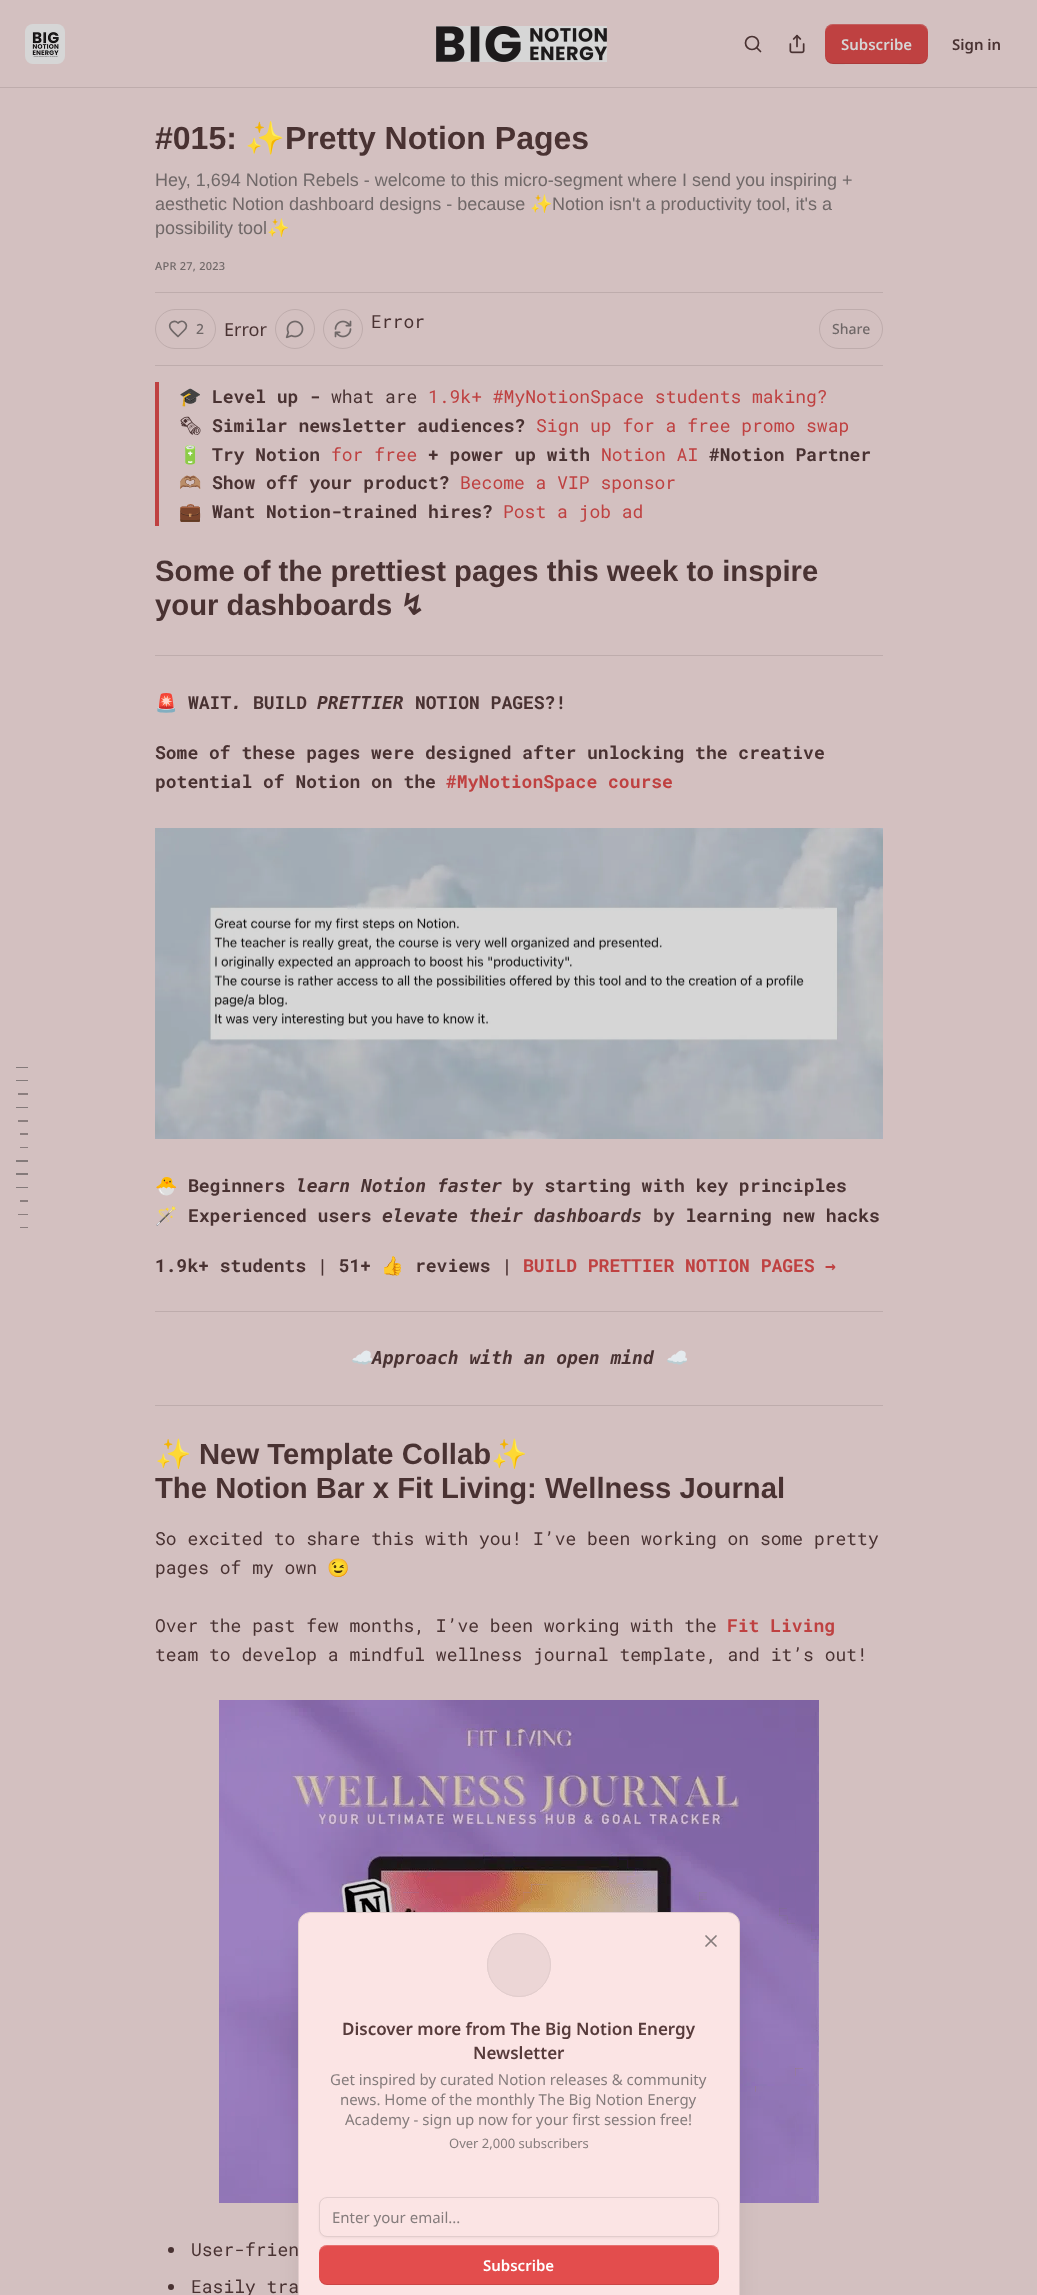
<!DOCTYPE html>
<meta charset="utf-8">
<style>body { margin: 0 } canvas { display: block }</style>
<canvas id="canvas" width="1037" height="2295"></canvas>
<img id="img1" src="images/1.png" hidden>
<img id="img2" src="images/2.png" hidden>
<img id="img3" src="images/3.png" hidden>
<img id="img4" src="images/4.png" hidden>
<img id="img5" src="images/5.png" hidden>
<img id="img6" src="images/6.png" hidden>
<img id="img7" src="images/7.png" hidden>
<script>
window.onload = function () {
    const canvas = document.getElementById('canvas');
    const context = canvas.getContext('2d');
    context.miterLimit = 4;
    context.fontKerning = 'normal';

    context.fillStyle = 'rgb(211, 192, 192)';
    context.fillRect(0, 0, 1037, 2295);
    context.fillStyle = 'rgb(190, 172, 172)';
    context.fillRect(0, 87, 1037, 1);
    context.fillStyle = 'rgb(214, 214, 214)';
    context.beginPath();
    context.roundRect(25, 24, 40, 40, 8);
    context.fill();
    context.drawImage(document.getElementById('img1'), 32, 32, 27, 26);
    context.drawImage(document.getElementById('img2'), 436, 26, 171, 36);
    context.beginPath();
    context.arc(752, 43, 6.5, 0, 2 * Math.PI);
    context.strokeStyle = 'rgb(73, 50, 50)';
    context.lineWidth = 1.7;
    context.stroke();
    context.beginPath();
    context.moveTo(760.5, 51.5);
    context.lineTo(757, 48);
    context.lineCap = 'round';
    context.lineJoin = 'round';
    context.stroke();
    context.drawImage(document.getElementById('img3'), 789, 34, 16, 20);
    context.fillStyle = 'rgb(191, 65, 65)';
    context.beginPath();
    context.roundRect(825, 24, 103, 40, 8);
    context.fill();
    context.fillStyle = 'rgba(0, 0, 0, 0.1)';
    context.beginPath();
    context.moveTo(825, 55);
    context.bezierCurveTo(825, 67, 839, 64, 848, 64);
    context.lineTo(906, 64);
    context.bezierCurveTo(914, 64, 928, 67, 928, 55);
    context.bezierCurveTo(928, 59, 924, 63, 920, 63);
    context.lineTo(833, 63);
    context.bezierCurveTo(829, 63, 825, 59, 825, 55);
    context.closePath();
    context.fill();
    context.fillStyle = 'rgba(214, 214, 214, 0.2)';
    context.beginPath();
    context.moveTo(833, 25);
    context.lineTo(920, 25);
    context.bezierCurveTo(924, 25, 928, 29, 928, 33);
    context.bezierCurveTo(928, 21, 914, 24, 906, 24);
    context.lineTo(848, 24);
    context.bezierCurveTo(839, 24, 825, 21, 825, 33);
    context.bezierCurveTo(825, 29, 829, 25, 833, 25);
    context.closePath();
    context.fill();
    context.fillStyle = 'rgb(190, 172, 172)';
    context.fillRect(155, 292, 728, 1);
    context.fillRect(155, 365, 728, 1);
    context.beginPath();
    context.roundRect(155.5, 309.5, 60, 39, 19.5);
    context.strokeStyle = 'rgb(190, 172, 172)';
    context.lineWidth = 1;
    context.lineJoin = 'miter';
    context.stroke();
    context.beginPath();
    context.moveTo(184, 330.5);
    context.bezierCurveTo(190, 324.5, 183, 318.5, 178, 323);
    context.bezierCurveTo(174.5, 319.5, 168.5, 322.5, 170, 327.5);
    context.bezierCurveTo(171, 330.5, 176, 334.5, 178, 336.5);
    context.closePath();
    context.strokeStyle = 'rgb(112, 104, 104)';
    context.lineWidth = 1.7;
    context.lineJoin = 'round';
    context.stroke();
    context.beginPath();
    context.arc(295, 329, 19.5, 0, 2 * Math.PI);
    context.strokeStyle = 'rgb(190, 172, 172)';
    context.lineWidth = 1;
    context.stroke();
    context.drawImage(document.getElementById('img4'), 285, 320, 19, 19);
    context.beginPath();
    context.arc(343, 329, 19.5, 0, 2 * Math.PI);
    context.stroke();
    context.drawImage(document.getElementById('img5'), 334, 320, 18, 18);
    context.beginPath();
    context.roundRect(819.5, 309.5, 63, 39, 19.5);
    context.lineJoin = 'miter';
    context.stroke();
    context.fillStyle = 'rgb(132, 122, 122)';
    context.fillRect(16, 1067, 12, 1);
    context.fillRect(16, 1080, 12, 1);
    context.fillStyle = 'rgb(139, 126, 126)';
    context.fillRect(18, 1093, 10, 2);
    context.fillStyle = 'rgb(132, 122, 122)';
    context.fillRect(16, 1107, 12, 1);
    context.fillStyle = 'rgb(139, 126, 126)';
    context.fillRect(18, 1120, 10, 2);
    context.fillRect(20, 1133, 8, 2);
    context.fillRect(20, 1147, 8, 1);
    context.fillStyle = 'rgb(132, 122, 122)';
    context.fillRect(16, 1160, 12, 2);
    context.fillRect(16, 1173, 12, 2);
    context.fillRect(16, 1187, 12, 1);
    context.fillStyle = 'rgb(139, 126, 126)';
    context.fillRect(20, 1200, 8, 2);
    context.fillRect(18, 1214, 10, 1);
    context.fillRect(20, 1227, 8, 1);
    context.fillStyle = 'rgb(191, 65, 65)';
    context.fillRect(155, 382, 4, 144);
    context.fillStyle = 'rgb(190, 172, 172)';
    context.fillRect(155, 655, 728, 1);
    context.drawImage(document.getElementById('img6'), 155, 828, 728, 311);
    context.fillRect(155, 1311, 728, 1);
    context.fillRect(155, 1405, 728, 1);
    context.drawImage(document.getElementById('img7'), 219, 1700, 600, 503);
    context.fillStyle = 'rgb(73, 50, 50)';
    context.beginPath();
    context.arc(171, 2250, 3, 0, 2 * Math.PI);
    context.fill();
    context.beginPath();
    context.arc(171, 2287, 3, 0, 2 * Math.PI);
    context.fill();
    context.fillStyle = 'rgba(0, 0, 0, 0.1)';
    context.filter = 'blur(12.5px)';
    context.beginPath();
    context.roundRect(303, 1937, 432, 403, 7);
    context.fill();
    context.filter = 'none';
    context.fillStyle = 'rgb(251, 228, 228)';
    context.beginPath();
    context.roundRect(298.5, 1912.5, 441, 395, 11.5);
    context.fill();
    context.strokeStyle = 'rgb(226, 205, 205)';
    context.stroke();
    context.beginPath();
    context.arc(519, 1965, 31.5, 0, 2 * Math.PI);
    context.stroke();
    context.fillStyle = 'rgb(236, 214, 214)';
    context.beginPath();
    context.arc(519, 1965, 31.5, 0, 2 * Math.PI);
    context.fill();
    context.stroke();
    context.beginPath();
    context.moveTo(716, 1936);
    context.lineTo(706, 1946);
    context.moveTo(706, 1936);
    context.lineTo(716, 1946);
    context.strokeStyle = 'rgb(133, 124, 124)';
    context.lineWidth = 1.7;
    context.lineJoin = 'round';
    context.stroke();
    context.fillStyle = 'rgba(0, 0, 0, 0.05)';
    context.filter = 'blur(1px)';
    context.beginPath();
    context.roundRect(319, 2198, 400, 40, 8);
    context.fill();
    context.filter = 'none';
    context.fillStyle = 'rgb(251, 228, 228)';
    context.beginPath();
    context.roundRect(319.5, 2197.5, 399, 39, 7.5);
    context.fill();
    context.strokeStyle = 'rgb(226, 205, 205)';
    context.lineWidth = 1;
    context.lineJoin = 'miter';
    context.stroke();
    context.fillStyle = 'rgb(227, 77, 77)';
    context.beginPath();
    context.roundRect(319, 2245, 400, 40, 8);
    context.fill();
    context.fillStyle = 'rgba(0, 0, 0, 0.1)';
    context.beginPath();
    context.moveTo(319, 2276);
    context.lineTo(319, 2277);
    context.bezierCurveTo(319, 2281, 323, 2285, 327, 2285);
    context.lineTo(711, 2285);
    context.bezierCurveTo(715, 2285, 719, 2281, 719, 2277);
    context.lineTo(719, 2276);
    context.bezierCurveTo(719, 2280, 715, 2284, 711, 2284);
    context.lineTo(327, 2284);
    context.bezierCurveTo(323, 2284, 319, 2280, 319, 2276);
    context.closePath();
    context.fill();
    context.fillStyle = 'rgba(255, 255, 255, 0.2)';
    context.beginPath();
    context.moveTo(327, 2246);
    context.lineTo(711, 2246);
    context.bezierCurveTo(715, 2246, 719, 2250, 719, 2254);
    context.lineTo(719, 2253);
    context.bezierCurveTo(719, 2249, 715, 2245, 711, 2245);
    context.lineTo(327, 2245);
    context.bezierCurveTo(323, 2245, 319, 2249, 319, 2253);
    context.lineTo(319, 2254);
    context.bezierCurveTo(319, 2250, 323, 2246, 327, 2246);
    context.closePath();
    context.fill();
    context.font = '600 15px Noto Sans';
    context.fillStyle = 'rgb(214, 214, 214)';
    context.fillText('Subscribe', 841, 50);
    context.fillStyle = 'rgb(73, 50, 50)';
    context.fillText('Sign in', 952, 50);
    context.font = 'bold 32px Liberation Sans';
    context.fillText('#015:', 155, 149);
    context.font = 'bold 32px Noto Color Emoji';
    context.fillText('✨', 245, 149);
    context.font = 'bold 32px Liberation Sans';
    context.fillText('Pretty Notion Pages', 285, 149);
    context.font = '18px Liberation Sans';
    context.fillStyle = 'rgb(112, 104, 104)';
    context.fillText('Hey, 1,694 Notion Rebels - welcome to this micro-segment where I send you inspiring +', 155, 186);
    context.fillText('aesthetic Notion dashboard designs - because', 155, 210);
    context.font = '18px Noto Color Emoji';
    context.fillText('✨', 530, 210);
    context.font = '18px Liberation Sans';
    context.fillText('Notion isn\'t a productivity tool, it\'s a', 552, 210);
    context.fillText('possibility tool', 155, 234);
    context.font = '18px Noto Color Emoji';
    context.fillText('✨', 267, 234);
    context.letterSpacing = '0.25px';
    context.font = '500 11px Noto Sans';
    context.fillText('APR 27, 2023', 155, 270);
    context.letterSpacing = '0px';
    context.font = '500 14px Noto Sans';
    context.fillText('2', 196, 334);
    context.font = '18px Noto Sans';
    context.fillStyle = 'rgb(73, 50, 50)';
    context.fillText('Error', 224, 336);
    context.font = '18px Roboto Mono';
    context.fillText('Error', 371, 328);
    context.font = '500 14px Noto Sans';
    context.fillStyle = 'rgb(112, 104, 104)';
    context.fillText('Share', 832, 334);
    context.font = 'bold 18px Noto Color Emoji';
    context.fillStyle = 'rgb(73, 50, 50)';
    context.fillText('🎓', 179, 403);
    context.font = 'bold 18px Roboto Mono';
    context.fillText('Level up -', 212, 403);
    context.font = '18px Roboto Mono';
    context.fillText('what are', 331, 403);
    context.fillStyle = 'rgb(191, 65, 65)';
    context.fillText('1.9k+ #MyNotionSpace students making?', 428, 403);
    context.font = 'bold 18px Noto Emoji';
    context.fillStyle = 'rgb(73, 50, 50)';
    context.fillText('🗞', 179, 432);
    context.font = 'bold 18px Roboto Mono';
    context.fillText('Similar newsletter audiences?', 212, 432);
    context.font = '18px Roboto Mono';
    context.fillStyle = 'rgb(191, 65, 65)';
    context.fillText('Sign up for a free promo swap', 536, 432);
    context.font = '18px Noto Color Emoji';
    context.fillStyle = 'rgb(73, 50, 50)';
    context.fillText('🔋', 179, 461);
    context.font = 'bold 18px Roboto Mono';
    context.fillText('Try Notion', 212, 461);
    context.font = '18px Roboto Mono';
    context.fillStyle = 'rgb(191, 65, 65)';
    context.fillText('for free', 331, 461);
    context.font = 'bold 18px Roboto Mono';
    context.fillStyle = 'rgb(73, 50, 50)';
    context.fillText('+ power up with', 428, 461);
    context.font = '18px Roboto Mono';
    context.fillStyle = 'rgb(191, 65, 65)';
    context.fillText('Notion AI', 601, 461);
    context.font = 'bold 18px Roboto Mono';
    context.fillStyle = 'rgb(73, 50, 50)';
    context.fillText('#Notion Partner', 709, 461);
    context.font = 'bold 18px Noto Color Emoji';
    context.fillText('🫶🏽', 179, 489);
    context.font = 'bold 18px Roboto Mono';
    context.fillText('Show off your product?', 212, 489);
    context.font = '18px Roboto Mono';
    context.fillStyle = 'rgb(191, 65, 65)';
    context.fillText('Become a VIP sponsor', 460, 489);
    context.font = 'bold 18px Noto Color Emoji';
    context.fillStyle = 'rgb(73, 50, 50)';
    context.fillText('💼', 179, 518);
    context.font = 'bold 18px Roboto Mono';
    context.fillText('Want Notion-trained hires?', 212, 518);
    context.font = '18px Roboto Mono';
    context.fillStyle = 'rgb(191, 65, 65)';
    context.fillText('Post a job ad', 503, 518);
    context.font = 'bold 29.25px Liberation Sans';
    context.fillStyle = 'rgb(73, 50, 50)';
    context.fillText('Some of the prettiest pages this week to inspire', 155, 581);
    context.fillText('your dashboards', 155, 615);
    context.font = 'bold 29.25px DejaVu Sans';
    context.fillText('↯', 400, 615);
    context.font = 'bold 18px Noto Color Emoji';
    context.fillText('🚨', 155, 709);
    context.font = 'bold 18px Roboto Mono';
    context.fillText('WAIT', 188, 709);
    context.font = 'italic bold 18px DejaVu Sans Mono';
    context.fillText('.', 231, 709);
    context.font = 'bold 18px Roboto Mono';
    context.fillText('BUILD', 253, 709);
    context.font = 'italic bold 18px DejaVu Sans Mono';
    context.fillText('PRETTIER', 317, 709);
    context.font = 'bold 18px Roboto Mono';
    context.fillText('NOTION PAGES?!', 415, 709);
    context.fillText('Some of these pages were designed after unlocking the creative', 155, 759);
    context.fillText('potential of Notion on the', 155, 788);
    context.fillStyle = 'rgb(191, 65, 65)';
    context.fillText('#MyNotionSpace course', 446, 788);
    context.font = 'bold 18px Noto Color Emoji';
    context.fillStyle = 'rgb(73, 50, 50)';
    context.fillText('🐣', 155, 1192);
    context.font = 'bold 18px Roboto Mono';
    context.fillText('Beginners', 188, 1192);
    context.font = 'italic bold 18px DejaVu Sans Mono';
    context.fillText('learn Notion faster', 296, 1192);
    context.font = 'bold 18px Roboto Mono';
    context.fillText('by starting with key principles', 512, 1192);
    context.font = 'bold 18px Noto Color Emoji';
    context.fillText('🪄', 155, 1222);
    context.font = 'bold 18px Roboto Mono';
    context.fillText('Experienced users', 188, 1222);
    context.font = 'italic bold 18px DejaVu Sans Mono';
    context.fillText('elevate their dashboards', 382, 1222);
    context.font = 'bold 18px Roboto Mono';
    context.fillText('by learning new hacks', 653, 1222);
    context.fillText('1.9k+ students | 51+', 155, 1272);
    context.font = 'bold 18px Noto Color Emoji';
    context.fillText('👍', 381, 1272);
    context.font = 'bold 18px Roboto Mono';
    context.fillText('reviews |', 415, 1272);
    context.fillStyle = 'rgb(191, 65, 65)';
    context.fillText('BUILD PRETTIER NOTION PAGES', 523, 1272);
    context.font = 'bold 18px DejaVu Sans Mono';
    context.fillText('→', 825, 1272);
    context.font = 'italic bold 18px Noto Color Emoji';
    context.fillStyle = 'rgb(73, 50, 50)';
    context.fillText('☁️', 350, 1364);
    context.font = 'italic bold 18px DejaVu Sans Mono';
    context.fillText('Approach with an open mind', 372, 1364);
    context.font = 'italic bold 18px Noto Color Emoji';
    context.fillText('☁️', 665, 1364);
    context.font = 'bold 29.25px Noto Color Emoji';
    context.fillText('✨', 155, 1464);
    context.font = 'bold 29.25px Liberation Sans';
    context.fillText('New Template Collab', 199, 1464);
    context.font = 'bold 29.25px Noto Color Emoji';
    context.fillText('✨', 491, 1464);
    context.font = 'bold 29.25px Liberation Sans';
    context.fillText('The Notion Bar x Fit Living: Wellness Journal', 155, 1498);
    context.font = '18px Roboto Mono';
    context.fillText('So excited to share this with you! I’ve been working on some pretty', 155, 1545);
    context.fillText('pages of my own', 155, 1574);
    context.font = '18px Noto Color Emoji';
    context.fillText('😉', 327, 1574);
    context.font = '18px Roboto Mono';
    context.fillText('Over the past few months, I’ve been working with the', 155, 1632);
    context.font = 'bold 18px Roboto Mono';
    context.fillStyle = 'rgb(191, 65, 65)';
    context.fillText('Fit Living', 727, 1632);
    context.font = '18px Roboto Mono';
    context.fillStyle = 'rgb(73, 50, 50)';
    context.fillText('team to develop a mindful wellness journal template, and it’s out!', 155, 1661);
    context.fillText('User-frien', 191, 2256);
    context.fillText('Easily tra', 191, 2293);
    context.font = '600 17px Noto Sans';
    context.fillStyle = 'rgb(87, 59, 59)';
    context.fillText('Discover more from The Big Notion Energy', 342, 2035);
    context.fillText('Newsletter', 473, 2059);
    context.font = '15px Noto Sans';
    context.fillStyle = 'rgb(133, 124, 124)';
    context.fillText('Get inspired by curated Notion releases & community', 330, 2085);
    context.fillText('news. Home of the monthly The Big Notion Energy', 340, 2105);
    context.fillText('Academy - sign up now for your first session free!', 345, 2125);
    context.font = '13px Noto Sans';
    context.fillText('Over 2,000 subscribers', 449, 2148);
    context.font = '15px Noto Sans';
    context.fillText('Enter your email...', 332, 2223);
    context.font = '600 15px Noto Sans';
    context.fillStyle = 'rgb(255, 255, 255)';
    context.fillText('Subscribe', 483, 2271);
};
</script>
